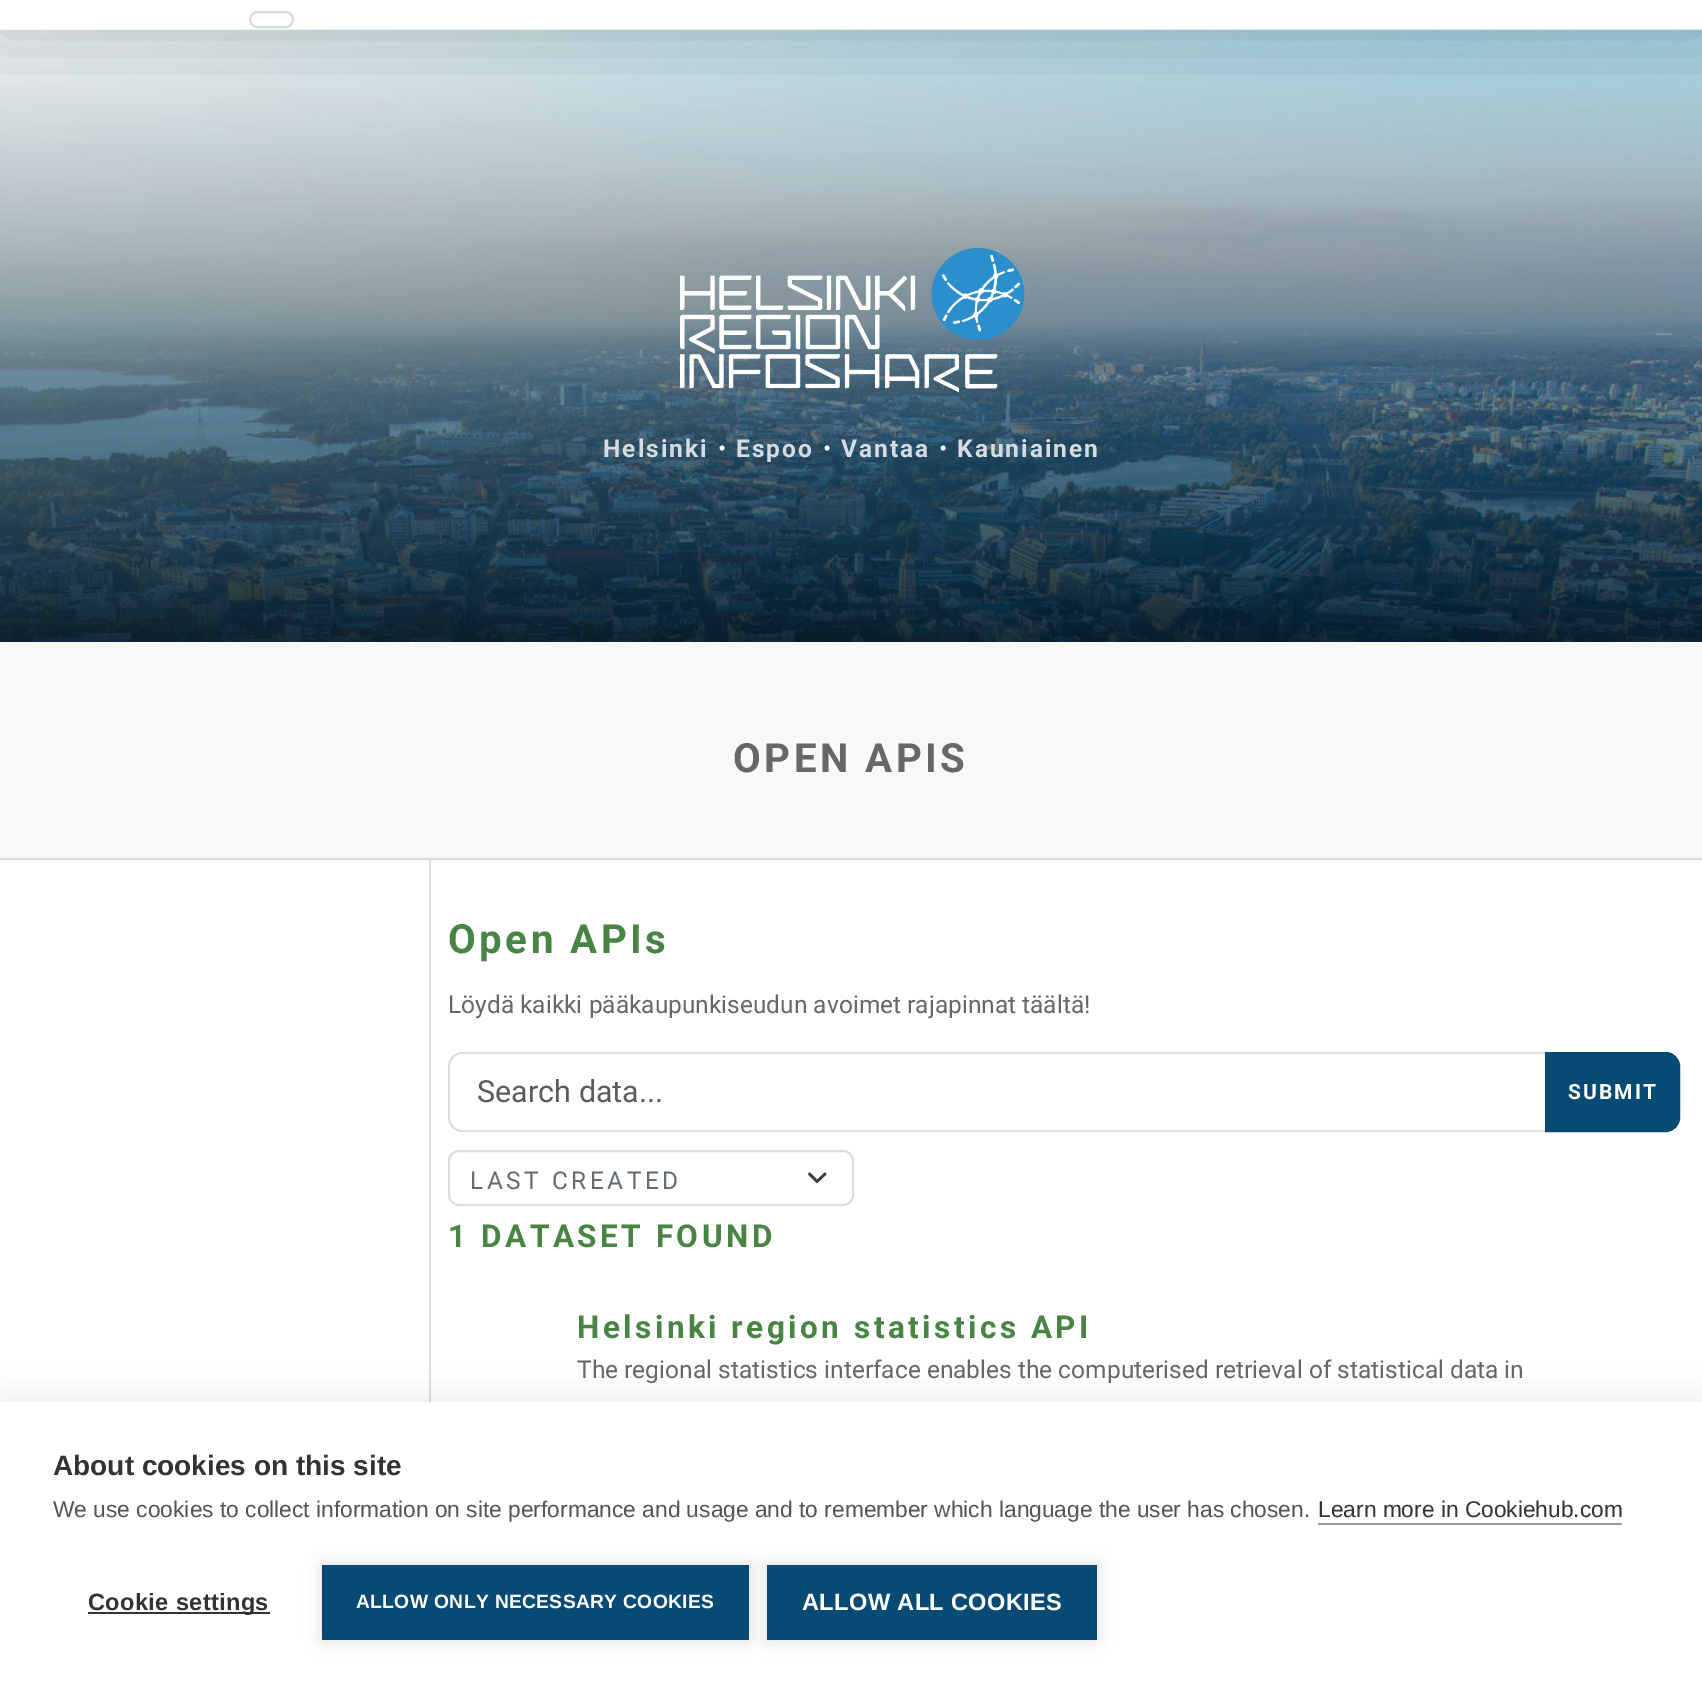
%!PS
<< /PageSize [1702 1683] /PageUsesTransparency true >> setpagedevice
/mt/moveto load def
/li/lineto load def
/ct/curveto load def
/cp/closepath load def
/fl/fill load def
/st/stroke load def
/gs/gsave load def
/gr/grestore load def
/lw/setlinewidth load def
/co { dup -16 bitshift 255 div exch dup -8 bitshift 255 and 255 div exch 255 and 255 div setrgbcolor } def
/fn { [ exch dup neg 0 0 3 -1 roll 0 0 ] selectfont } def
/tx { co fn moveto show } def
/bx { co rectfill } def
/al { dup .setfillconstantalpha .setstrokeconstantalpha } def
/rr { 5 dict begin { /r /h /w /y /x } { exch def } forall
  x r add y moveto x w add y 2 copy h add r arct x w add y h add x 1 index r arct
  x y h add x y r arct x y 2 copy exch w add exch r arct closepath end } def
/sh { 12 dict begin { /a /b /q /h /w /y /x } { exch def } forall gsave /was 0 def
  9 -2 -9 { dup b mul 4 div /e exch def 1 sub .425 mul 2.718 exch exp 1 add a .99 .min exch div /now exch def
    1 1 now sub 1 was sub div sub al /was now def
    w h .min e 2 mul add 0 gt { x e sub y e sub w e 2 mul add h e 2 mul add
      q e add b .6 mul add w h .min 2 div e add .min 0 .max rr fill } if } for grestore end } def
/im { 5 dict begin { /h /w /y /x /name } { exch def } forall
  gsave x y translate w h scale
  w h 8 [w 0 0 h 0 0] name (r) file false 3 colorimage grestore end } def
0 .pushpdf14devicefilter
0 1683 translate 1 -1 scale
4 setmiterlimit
0 0 1702 1683 16#FFFFFF bx
(media/2.raw) 0 29 1702 613 im
gs
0 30 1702 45 rectclip
16#000000 co
0 -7 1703 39 0 35 .2 sh
gr
16#D9D9D9 co
2 lw
250 12 43 15 7.5 rr st
(media/1.raw) 680 247 345 146 im
0 642 1702 216 16#F8F8F8 bx
0 858 1702 2 16#DDDDDD bx
429 859 2 543 16#DDDDDD bx
462 1053 mt 1546 1053 li 1546 1131 li 462 1131 li 455 1131 449 1125 449 1118 ct 449 1066 li 449 1059 455 1053 462 1053 ct cp st
16#074A74 co
1546 1053 mt 1666 1053 li 1673 1053 1679 1059 1679 1066 ct 1679 1118 li 1679 1125 1673 1131 1666 1131 ct 1546 1131 li cp gs fl gr
st
16#343A40 co
2.6 lw
1 setlinecap
1 setlinejoin
809.5 1174 mt 817 1181.5 li 825 1174 li st
16#DDDDDD co
2 lw
0 setlinecap
0 setlinejoin
449 1151 404 54 10 rr st
16#000000 co
0 1402 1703 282 0 17.5 .1 sh
0 1402 1702 281 16#FFFFFF bx
1318 1523 304 2 16#999999 bx
88 1612 182 2 16#333333 bx
16#000000 co
322 1565 427 75 0 9 .12 sh
322 1565 427 75 16#074A74 bx
16#000000 co
767 1565 330 75 0 9 .12 sh
767 1565 330 75 16#074A74 bx
/Roboto-Bold 24.5 fn
16#D6DCE1 co
603 457 mt 2 0 (Helsinki) ashow
(•) 718 457 /Roboto-Regular 24.5 16#FFFFFF tx
/Roboto-Bold 24.5 fn
16#D6DCE1 co
736 457 mt 2 0 (Espoo) ashow
(•) 823 457 /Roboto-Regular 24.5 16#FFFFFF tx
/Roboto-Bold 24.5 fn
16#D6DCE1 co
841 457 mt 2 0 (Vantaa) ashow
(•) 939 457 /Roboto-Regular 24.5 16#FFFFFF tx
/Roboto-Bold 24.5 fn
16#D6DCE1 co
957 457 mt 2 0 (Kauniainen) ashow
/Roboto-Bold 40.25 fn
16#676767 co
733 772 mt 3.5 0 (OPEN APIS) ashow
16#488444 co
448 953 mt 3.5 0 (Open APIs) ashow
(Löydä kaikki pääkaupunkiseudun avoimet rajapinnat täältä!) 448 1013 /Roboto-Regular 24.5 16#676767 tx
(Search data...) 477 1102 /Roboto-Regular 30.5 16#595C5F tx
/Roboto-Bold 21 fn
16#FFFFFF co
1568 1099 mt 2 0 (SUBMIT) ashow
/Roboto-Regular 24.5 fn
16#656D74 co
470 1189 mt 3.5 0 (LAST CREATED) ashow
/Roboto-Bold 31.5 fn
16#488444 co
448 1247 mt 3.5 0 (1 DATASET FOUND) ashow
577 1338 mt 3.5 0 (Helsinki region statistics API) ashow
(The regional statistics interface enables the computerised retrieval of statistical data in) 577 1378 /Roboto-Regular 24.5 16#676767 tx
(About cookies on this site) 53 1475 /LiberationSans-Bold 28 16#333333 tx
(We use cookies to collect information on site performance and usage and to remember which language the user has chosen.) 53 1517 /LiberationSans-Regular 22.75 16#555555 tx
(Learn more in Cookiehub.com) 1318 1517 /LiberationSans-Regular 22.75 16#333333 tx
/LiberationSans-Bold 23.6 fn
88 1610 mt .35 0 (Cookie settings) ashow
/LiberationSans-Bold 19.25 fn
16#FFFFFF co
356 1608 mt .35 0 (ALLOW ONLY NECESSARY COOKIES) ashow
/LiberationSans-Bold 23.6 fn
802 1610 mt .35 0 (ALLOW ALL COOKIES) ashow
.poppdf14devicefilter showpage
